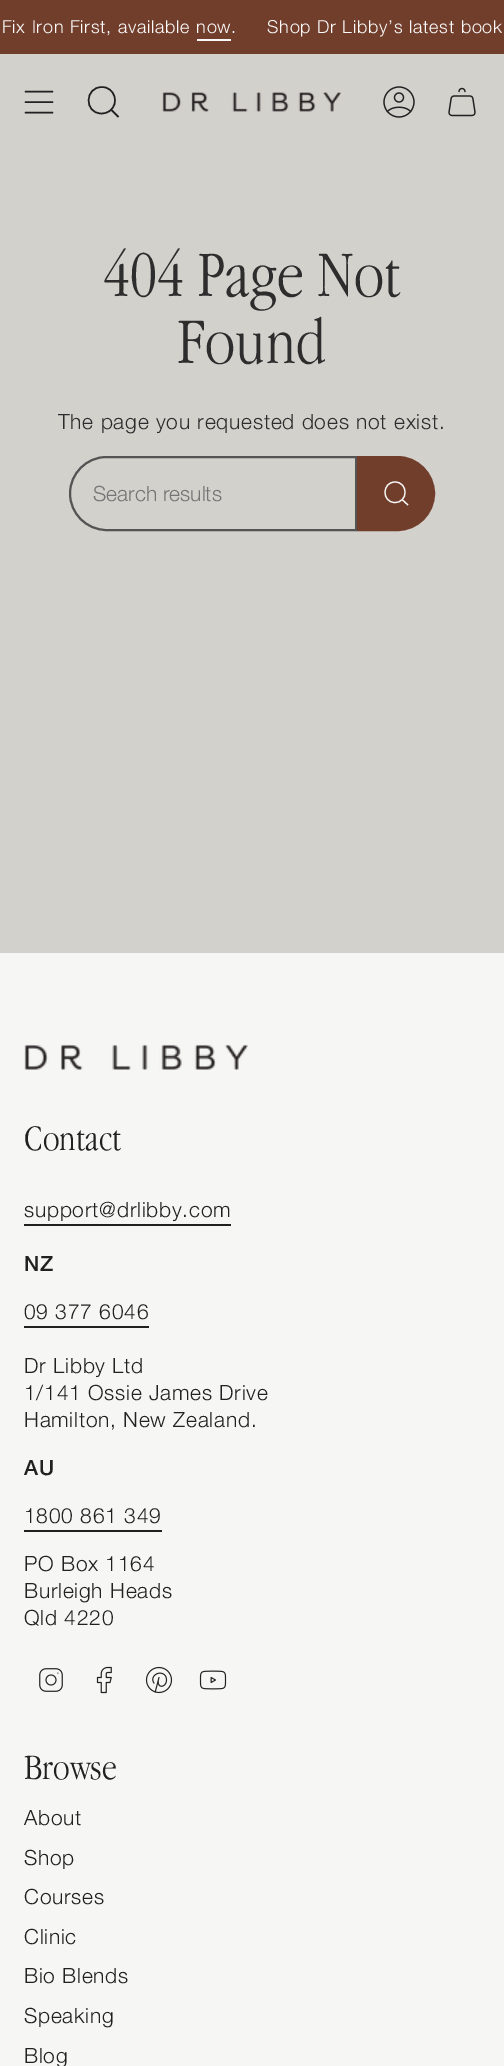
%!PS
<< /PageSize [504 2066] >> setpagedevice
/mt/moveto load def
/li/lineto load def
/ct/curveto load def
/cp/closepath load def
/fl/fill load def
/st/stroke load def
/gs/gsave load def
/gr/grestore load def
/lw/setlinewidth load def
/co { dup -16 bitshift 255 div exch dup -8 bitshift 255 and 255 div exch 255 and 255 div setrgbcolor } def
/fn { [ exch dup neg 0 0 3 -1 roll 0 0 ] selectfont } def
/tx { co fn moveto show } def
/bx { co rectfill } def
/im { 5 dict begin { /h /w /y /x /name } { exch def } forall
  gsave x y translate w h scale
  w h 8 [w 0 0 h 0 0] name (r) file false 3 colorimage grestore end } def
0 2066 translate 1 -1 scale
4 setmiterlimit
0 0 504 2066 16#D3D1CC bx
0 0 504 54 16#723E2C bx
197 39 34 2 16#FAFAFA bx
16#212121 co
1.5 lw
1 setlinecap
1 setlinejoin
25.5 91.5 mt 52.5 91.5 li 25.5 102 mt 52.5 102 li 25.5 112.5 mt 52.5 112.5 li st
0 setlinecap
0 setlinejoin
102 87 mt 114.5 87 120 103.5 109.5 111 ct 107 113 104 113.5 101 113.5 ct 84 113 84.5 87 102 87 ct cp 111 109.5 mt 118.5 117 li st
(media/1.raw) 162 92 179 20 im
(media/2.raw) 383 86 32 32 im
(media/3.raw) 448 87 28 30 im
16#545454 co
2 lw
106.5 457 mt 356 457 li 356 530 li 106.5 530 li 86.5 530 70 513.5 70 493.5 ct 70 473.5 86.5 457 106.5 457 ct cp st
16#723E2C co
358 457 mt 397.5 457 li 417.5 457 434 473.5 434 493.5 ct 434 513.5 417.5 530 397.5 530 ct 358 530 li cp gs fl gr
st
16#F6F6F5 co
1.2 lw
395 482 mt 408.5 482 408.5 503 394.5 502.5 ct 381.5 502 382 482 395 482 ct cp 402 499.5 mt 408 505 li st
0 953 504 1113 16#F6F6F5 bx
(media/4.raw) 24 1044 224 26 im
24 1224 207 2 16#212121 bx
24 1326 125 2 16#212121 bx
24 1530 138 2 16#212121 bx
(media/5.raw) 39 1668 24 24 im
(media/6.raw) 96 1666 16 28 im
(media/7.raw) 145 1666 28 28 im
(media/8.raw) 199 1670 28 20 im
/HelveticaNeue-Light 18 fn
16#FAFAFA co
2 33 mt .75 0 (Fix Iron First, available now) ashow
231 33 mt .75 0 (.) ashow
267 33 mt .75 0 (Shop Dr Libby’s latest book) ashow
(404 Page Not) 103 296 /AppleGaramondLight-Light 67 16#2D2D2D tx
(Found) 177 363 /AppleGaramondLight-Light 67 16#2D2D2D tx
/HelveticaNeue-Light 21 fn
58 429 mt .75 0 (The page you requested does not exist.) ashow
(Search results) 93 501 /HelveticaNeue-Light 21 16#757575 tx
(Contact) 24 1150 /AppleGaramondLight-Light 37 16#212121 tx
/HelveticaNeue-Light 21 fn
24 1217 mt .75 0 (support@drlibby.com) ashow
/HelveticaNeue-Medium 21 fn
24 1271 mt .75 0 (NZ) ashow
/HelveticaNeue-Light 21 fn
24 1319 mt .75 0 (09 377 6046) ashow
24 1373 mt .75 0 (Dr Libby Ltd) ashow
24 1400 mt .75 0 (1/141 Ossie James Drive) ashow
24 1427 mt .75 0 (Hamilton, New Zealand.) ashow
/HelveticaNeue-Medium 21 fn
24 1475 mt .75 0 (AU) ashow
/HelveticaNeue-Light 21 fn
24 1523 mt .75 0 (1800 861 349) ashow
24 1571 mt .75 0 (PO Box 1164) ashow
24 1598 mt .75 0 (Burleigh Heads) ashow
24 1625 mt .75 0 (Qld 4220) ashow
(Browse) 24 1779 /AppleGaramondLight-Light 37 16#212121 tx
/HelveticaNeue-Light 21 fn
24 1825 mt .75 0 (About) ashow
24 1865 mt .75 0 (Shop) ashow
24 1904 mt .75 0 (Courses) ashow
24 1944 mt .75 0 (Clinic) ashow
24 1983 mt .75 0 (Bio Blends) ashow
24 2023 mt .75 0 (Speaking) ashow
24 2063 mt .75 0 (Blog) ashow
showpage
